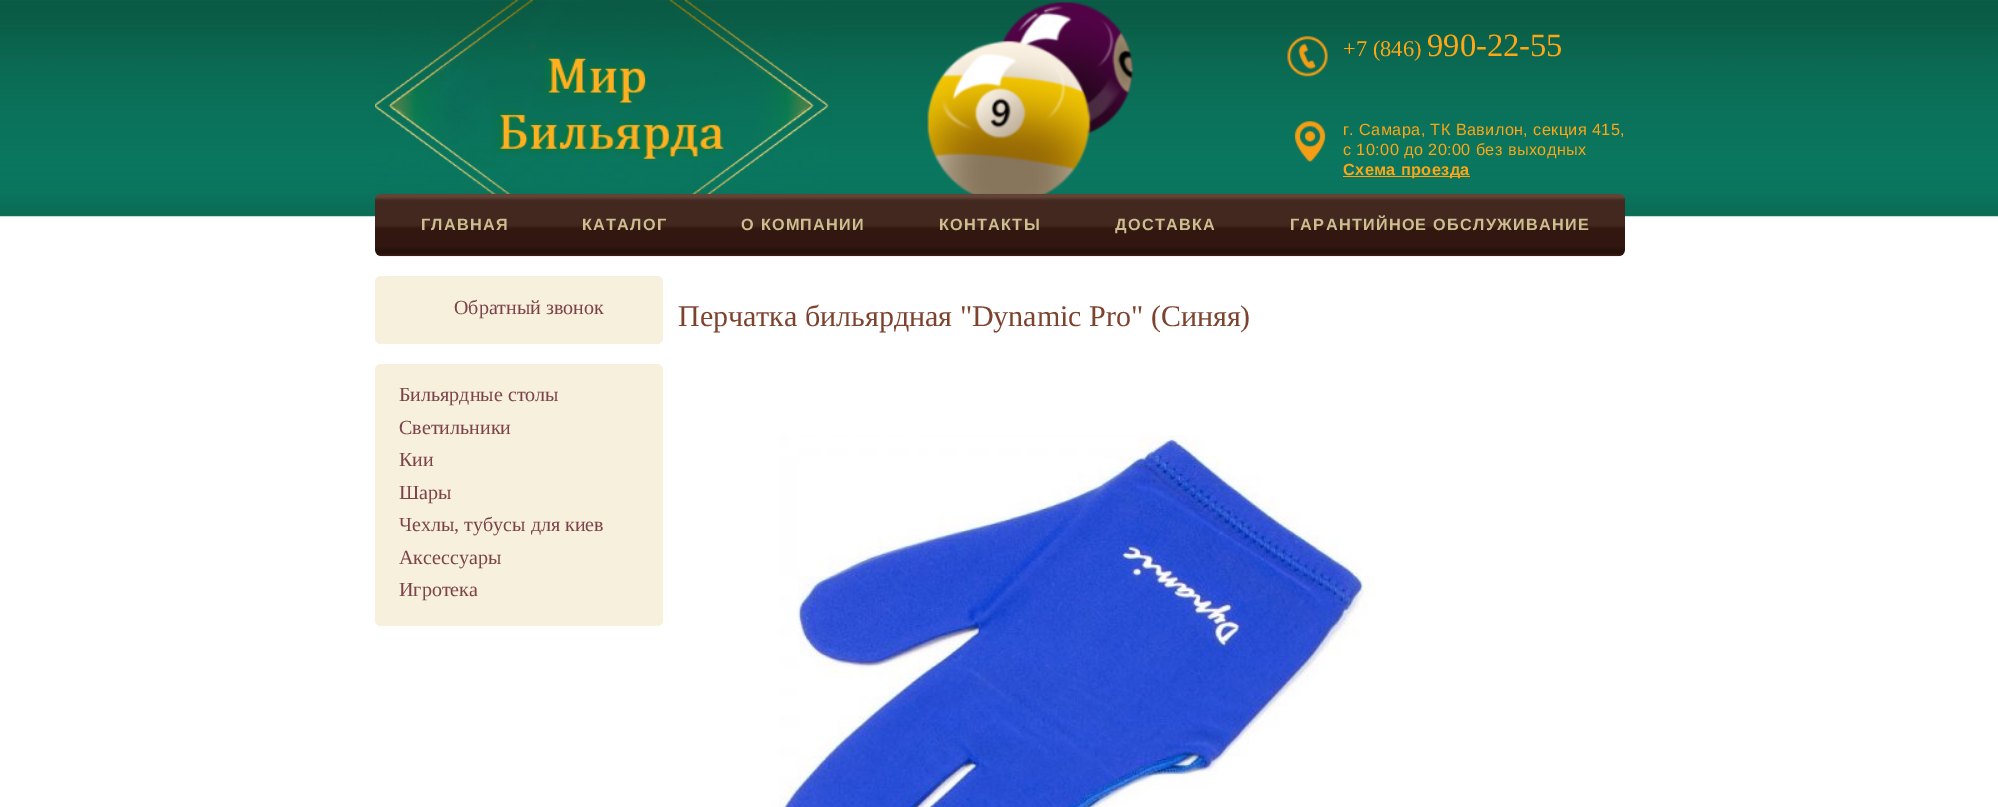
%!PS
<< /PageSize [1998 807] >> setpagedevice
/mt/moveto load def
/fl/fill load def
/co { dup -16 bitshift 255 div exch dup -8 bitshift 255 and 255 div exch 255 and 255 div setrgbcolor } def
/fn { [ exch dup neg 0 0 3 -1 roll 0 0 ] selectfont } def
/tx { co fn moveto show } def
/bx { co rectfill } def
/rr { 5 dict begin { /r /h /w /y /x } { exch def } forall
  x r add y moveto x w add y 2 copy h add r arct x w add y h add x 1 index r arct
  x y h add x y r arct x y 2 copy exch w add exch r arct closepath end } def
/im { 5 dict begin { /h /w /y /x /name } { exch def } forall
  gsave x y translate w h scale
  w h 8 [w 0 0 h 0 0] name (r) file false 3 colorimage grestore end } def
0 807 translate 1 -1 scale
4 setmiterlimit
0 0 1998 807 16#FFFFFF bx
(media/1.raw) 0 0 1998 217 im
(media/2.raw) 927 2 207 192 im
(media/3.raw) 375 0 457 200 im
(media/4.raw) 1287 36 41 41 im
(media/5.raw) 1294 121 32 41 im
1343 176 127 1 16#FFA616 bx
(media/6.raw) 375 193 1250 64 im
16#F7F0DD co
375 276 288 68 6 rr fl
375 364 288 262 6 rr fl
(media/7.raw) 779 435 597 372 im
(+7 \(846\)) 1343 56 /LiberationSerif-Regular 22.5 16#FFA616 tx
(990-22-55) 1427 56 /LiberationSerif-Regular 32.5 16#FFA616 tx
/LiberationSans-Regular 16.25 fn
1343 135 mt .4 0 (г. Самара, ТК Вавилон, секция 415,) ashow
1343 155 mt .4 0 (c 10:00 до 20:00 без выходных) ashow
/LiberationSans-Bold 16.25 fn
1343 175 mt .4 0 (Схема проезда) ashow
16#CEBD8E co
421 230 mt 1.25 0 (ГЛАВНАЯ) ashow
582 230 mt 1.25 0 (КАТАЛОГ) ashow
741 230 mt 1.25 0 (О КОМПАНИИ) ashow
939 230 mt 1.25 0 (КОНТАКТЫ) ashow
1115 230 mt 1.25 0 (ДОСТАВКА) ashow
1290 230 mt 1.25 0 (ГАРАНТИЙНОЕ ОБСЛУЖИВАНИЕ) ashow
(Обратный звонок) 454 314 /LiberationSerif-Regular 20 16#7D434A tx
(Бильярдные столы) 399 401 /LiberationSerif-Regular 20 16#7D434A tx
(Светильники) 399 434 /LiberationSerif-Regular 20 16#7D434A tx
(Кии) 399 466 /LiberationSerif-Regular 20 16#7D434A tx
(Шары) 399 499 /LiberationSerif-Regular 20 16#7D434A tx
(Чехлы, тубусы для киев) 399 531 /LiberationSerif-Regular 20 16#7D434A tx
(Аксессуары) 399 564 /LiberationSerif-Regular 20 16#7D434A tx
(Игротека) 399 596 /LiberationSerif-Regular 20 16#7D434A tx
(Перчатка бильярдная "Dynamic Pro" \(Синяя\)) 678 326 /LiberationSerif-Regular 30 16#7D432E tx
showpage
